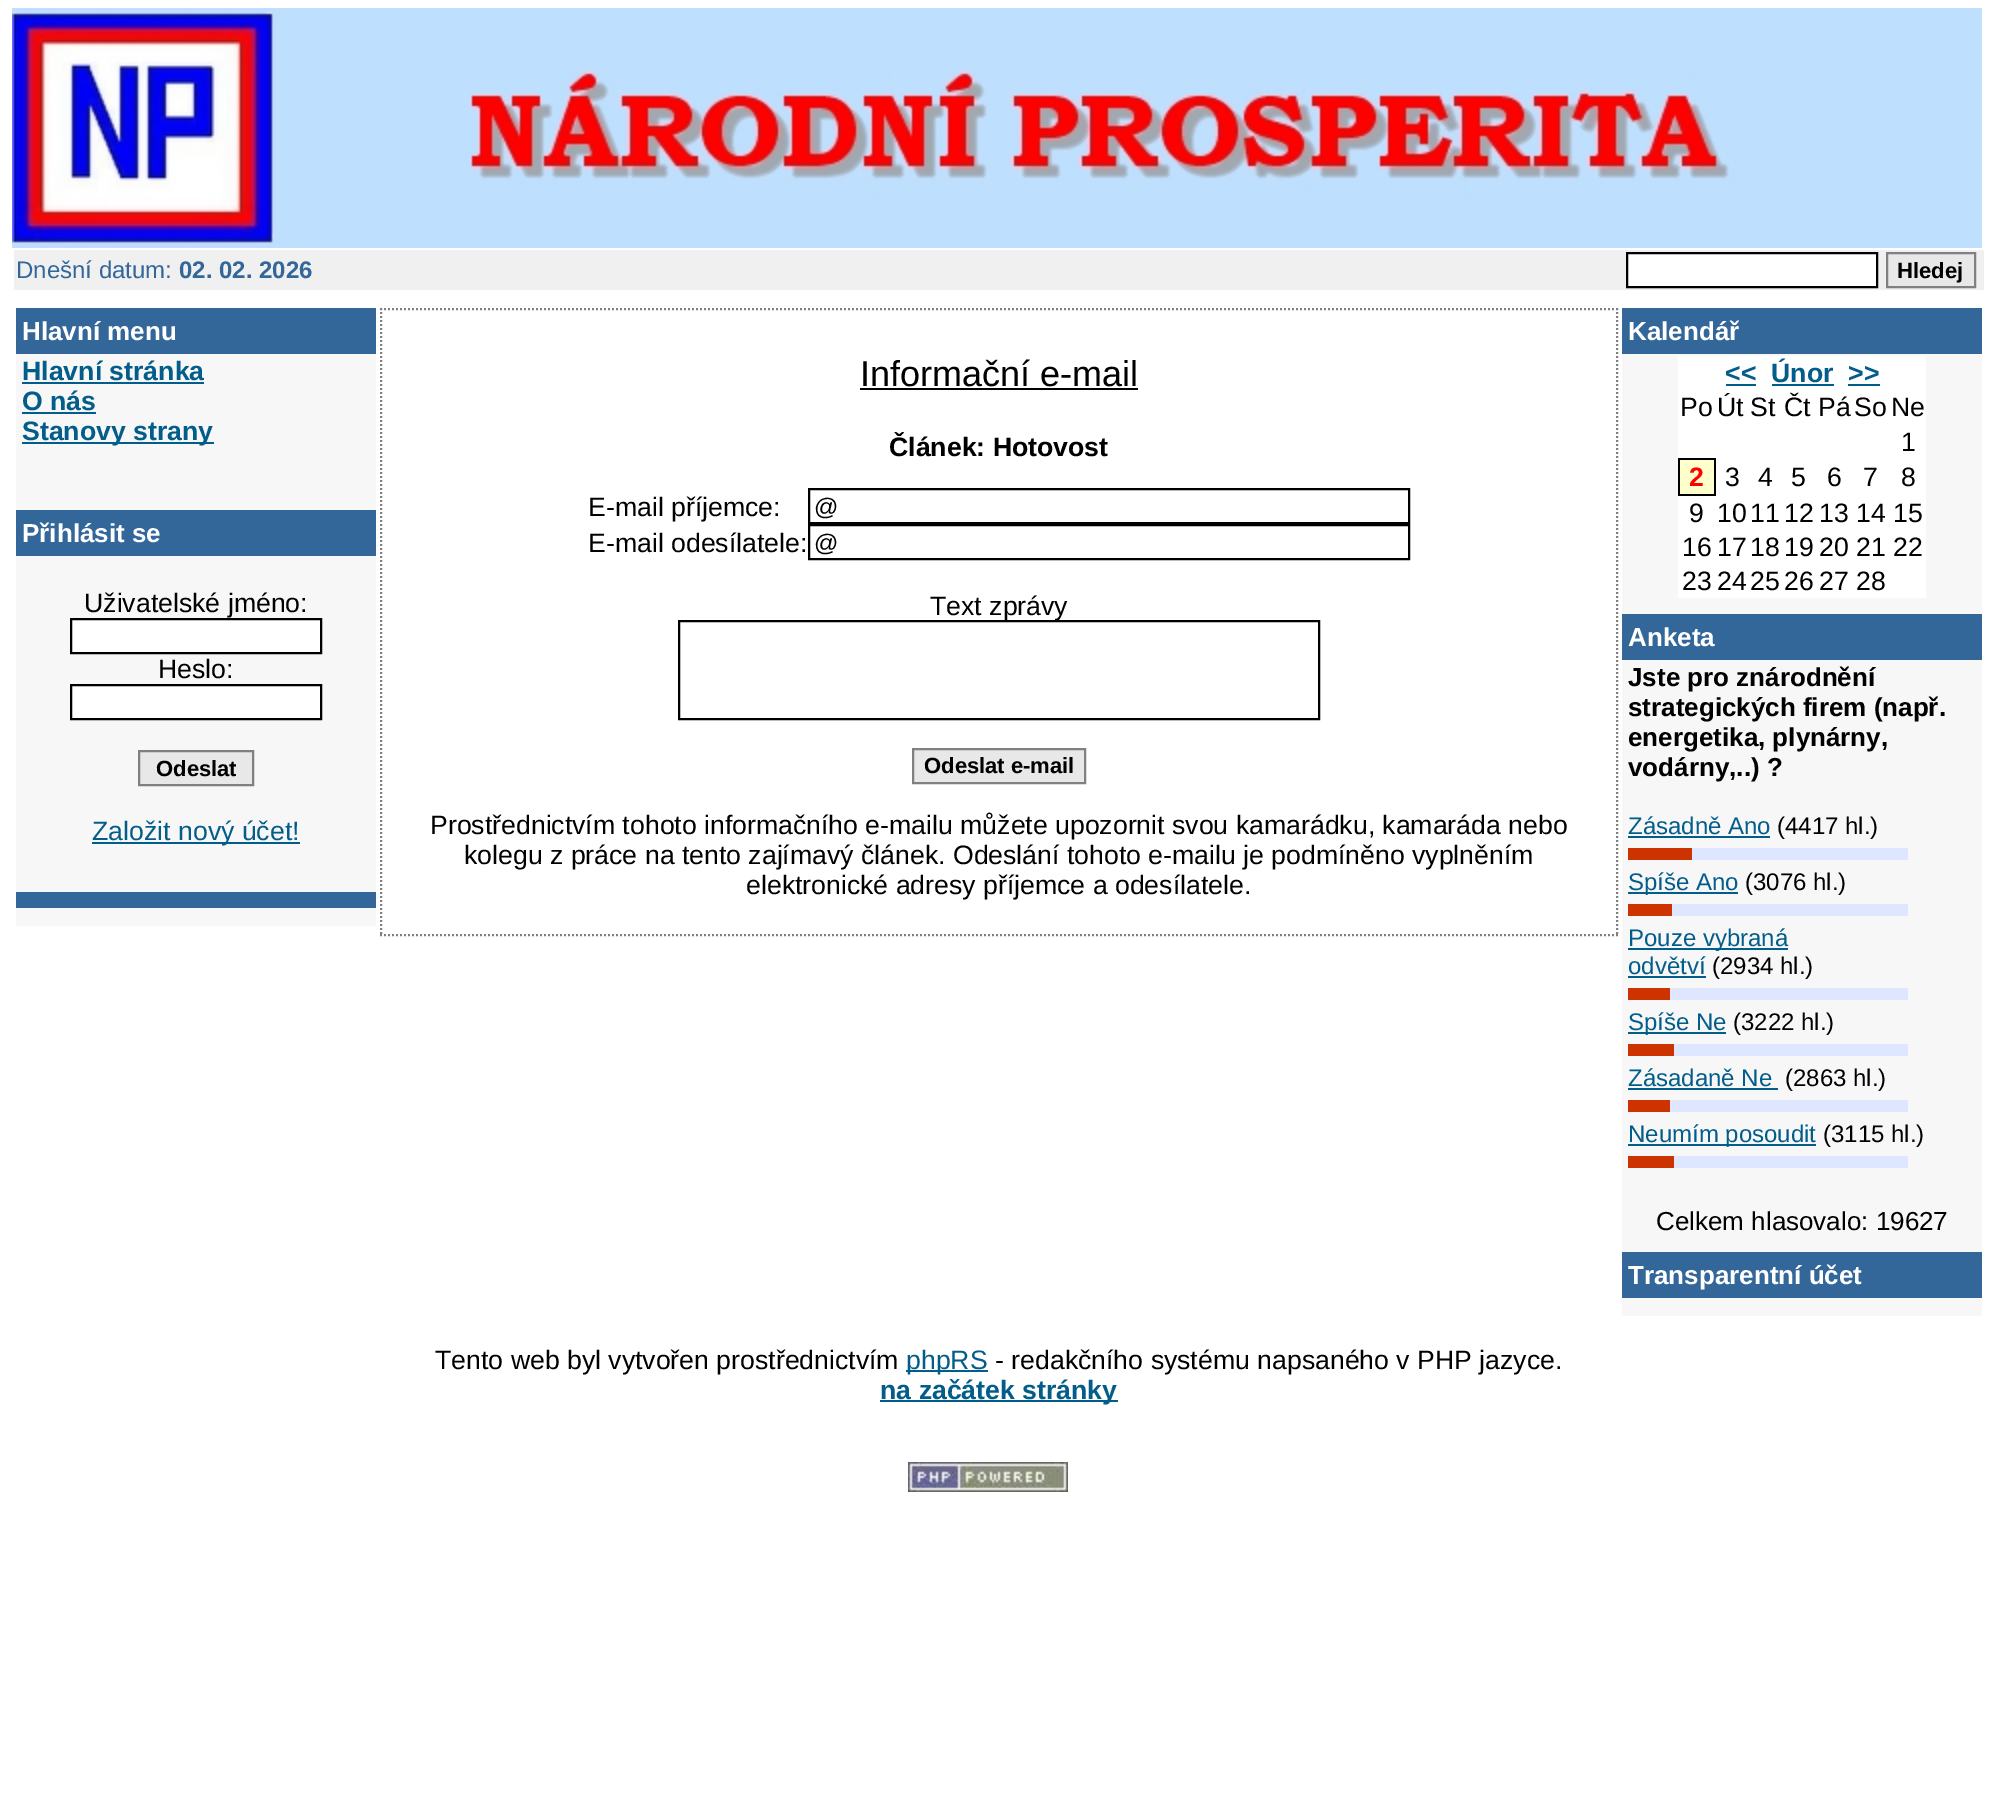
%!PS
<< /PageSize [1997 1813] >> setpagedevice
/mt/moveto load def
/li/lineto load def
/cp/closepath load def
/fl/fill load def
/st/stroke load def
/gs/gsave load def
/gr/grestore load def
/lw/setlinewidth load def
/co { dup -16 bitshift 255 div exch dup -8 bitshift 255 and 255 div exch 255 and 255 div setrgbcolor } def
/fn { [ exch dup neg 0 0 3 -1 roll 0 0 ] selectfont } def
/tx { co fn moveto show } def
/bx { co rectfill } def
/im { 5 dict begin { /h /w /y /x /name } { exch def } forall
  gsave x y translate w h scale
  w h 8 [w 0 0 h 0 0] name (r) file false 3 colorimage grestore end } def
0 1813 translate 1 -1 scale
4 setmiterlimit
0 0 1997 1813 16#FFFFFF bx
(media/1.raw) 12 8 1970 240 im
14 250 1970 40 16#F0F0F0 bx
16#FFFFFF co
1627 253 mt 1877 253 li 1877 287 li 1627 287 li cp gs fl gr
16#000000 co
2 lw
st
16#E8E8E8 co
1887 253 mt 1975 253 li 1975 287 li 1887 287 li cp gs fl gr
16#808080 co
st
16 354 360 156 16#F7F7F7 bx
16 308 360 46 16#336699 bx
22 382 182 2 16#035D8A bx
22 412 74 2 16#035D8A bx
22 442 192 2 16#035D8A bx
16 556 360 336 16#F7F7F7 bx
16 510 360 46 16#336699 bx
16#FFFFFF co
71 619 mt 321 619 li 321 653 li 71 653 li cp gs fl gr
16#000000 co
st
16#FFFFFF co
71 685 mt 321 685 li 321 719 li 71 719 li cp gs fl gr
16#000000 co
st
16#E8E8E8 co
139 751 mt 253 751 li 253 785 li 139 785 li cp gs fl gr
16#808080 co
st
92 842 208 2 16#035D8A bx
16 908 360 18 16#F7F7F7 bx
16 892 360 16 16#336699 bx
16#808080 co
[2 2] 0 setdash
380 309 mt 1618 309 li st
1617 308 mt 1617 936 li st
380 935 mt 1618 935 li st
381 308 mt 381 936 li st
860 388 278 2 16#000000 bx
[] 0 setdash
809 489 600 34 rectstroke
809 525 600 34 rectstroke
679 621 640 98 rectstroke
16#E8E8E8 co
913 749 mt 1085 749 li 1085 783 li 913 783 li cp gs fl gr
16#808080 co
st
1622 354 360 260 16#F7F7F7 bx
1622 308 360 46 16#336699 bx
1678 356 248 104 16#FFFFFF bx
1726 384 30 2 16#035D8A bx
1772 384 62 2 16#035D8A bx
1848 384 32 2 16#035D8A bx
1716 460 210 36 16#FFFFFF bx
1680 460 34 34 16#FFFFCC bx
1678 458 38 2 16#000000 bx
1714 458 2 38 16#000000 bx
1678 494 38 2 16#000000 bx
1678 458 2 38 16#000000 bx
1678 496 248 102 16#FFFFFF bx
1622 660 360 592 16#F7F7F7 bx
1622 614 360 46 16#336699 bx
1628 836 142 2 16#035D8A bx
1692 848 216 12 16#DEE7FF bx
1628 848 64 12 16#CC3300 bx
1628 892 110 2 16#035D8A bx
1672 904 236 12 16#DEE7FF bx
1628 904 44 12 16#CC3300 bx
1628 948 160 2 16#035D8A bx
1628 976 78 2 16#035D8A bx
1670 988 238 12 16#DEE7FF bx
1628 988 42 12 16#CC3300 bx
1628 1032 98 2 16#035D8A bx
1674 1044 234 12 16#DEE7FF bx
1628 1044 46 12 16#CC3300 bx
1628 1088 150 2 16#035D8A bx
1670 1100 238 12 16#DEE7FF bx
1628 1100 42 12 16#CC3300 bx
1628 1144 188 2 16#035D8A bx
1674 1156 234 12 16#DEE7FF bx
1628 1156 46 12 16#CC3300 bx
1622 1298 360 18 16#F7F7F7 bx
1622 1252 360 46 16#336699 bx
906 1370 82 2 16#035D8A bx
880 1400 238 2 16#035D8A bx
(media/2.raw) 908 1462 160 30 im
(Dnešní datum:) 16 278 /LiberationSans-Regular 24 16#336699 tx
(02. 02. 2026) 179 278 /LiberationSans-Bold 24 16#336699 tx
(Hledej) 1897 278 /LiberationSans-Bold 22 16#000000 tx
(Hlavní menu) 22 340 /LiberationSans-Bold 26 16#FFFFFF tx
(Hlavní stránka) 22 380 /LiberationSans-Bold 26.65 16#035D8A tx
(O nás) 22 410 /LiberationSans-Bold 26.65 16#035D8A tx
(Stanovy strany) 22 440 /LiberationSans-Bold 26.65 16#035D8A tx
(Přihlásit se) 22 542 /LiberationSans-Bold 26 16#FFFFFF tx
(Uživatelské jméno:) 84 612 /LiberationSans-Regular 26.65 16#000000 tx
(Heslo:) 158 678 /LiberationSans-Regular 26.65 16#000000 tx
(Odeslat) 156 776 /LiberationSans-Bold 22 16#000000 tx
(Založit nový účet!) 92 840 /LiberationSans-Regular 26.65 16#035D8A tx
(Informační e-mail) 860 386 /LiberationSans-Regular 36 16#000000 tx
(Článek: Hotovost) 889 456 /LiberationSans-Bold 26.65 16#000000 tx
(E-mail příjemce:) 588 516 /LiberationSans-Regular 26.65 16#000000 tx
(@) 814 515 /LiberationSans-Regular 24 16#000000 tx
(E-mail odesílatele:) 588 552 /LiberationSans-Regular 26.65 16#000000 tx
(@) 814 551 /LiberationSans-Regular 24 16#000000 tx
(Text zprávy) 930 615 /LiberationSans-Regular 26.65 16#000000 tx
(Odeslat e-mail) 924 773 /LiberationSans-Bold 22 16#000000 tx
(Prostřednictvím tohoto informačního e-mailu můžete upozornit svou kamarádku, kamaráda nebo) 430 834 /LiberationSans-Regular 26.65 16#000000 tx
(kolegu z práce na tento zajímavý článek. Odeslání tohoto e-mailu je podmíněno vyplněním) 464 864 /LiberationSans-Regular 26.65 16#000000 tx
(elektronické adresy příjemce a odesílatele.) 746 894 /LiberationSans-Regular 26.65 16#000000 tx
(Kalendář) 1628 340 /LiberationSans-Bold 26 16#FFFFFF tx
(<<) 1725 382 /LiberationSans-Bold 26.65 16#035D8A tx
(Únor) 1771 382 /LiberationSans-Bold 26.65 16#035D8A tx
(>>) 1848 382 /LiberationSans-Bold 26.65 16#035D8A tx
(Po) 1680 416 /LiberationSans-Regular 26.65 16#000000 tx
(Út) 1717 416 /LiberationSans-Regular 26.65 16#000000 tx
(St) 1750 416 /LiberationSans-Regular 26.65 16#000000 tx
(Čt) 1784 416 /LiberationSans-Regular 26.65 16#000000 tx
(Pá) 1818 416 /LiberationSans-Regular 26.65 16#000000 tx
(So) 1854 416 /LiberationSans-Regular 26.65 16#000000 tx
(Ne) 1891 416 /LiberationSans-Regular 26.65 16#000000 tx
(1) 1901 451 /LiberationSans-Regular 26.65 16#000000 tx
(2) 1689 486 /LiberationSans-Bold 26.65 16#FF0000 tx
(3) 1725 486 /LiberationSans-Regular 26.65 16#000000 tx
(4) 1758 486 /LiberationSans-Regular 26.65 16#000000 tx
(5) 1791 486 /LiberationSans-Regular 26.65 16#000000 tx
(6) 1827 486 /LiberationSans-Regular 26.65 16#000000 tx
(7) 1863 486 /LiberationSans-Regular 26.65 16#000000 tx
(8) 1901 486 /LiberationSans-Regular 26.65 16#000000 tx
(9) 1689 522 /LiberationSans-Regular 26.65 16#000000 tx
(10) 1717 522 /LiberationSans-Regular 26.65 16#000000 tx
(11) 1750 522 /LiberationSans-Regular 26.65 16#000000 tx
(12) 1784 522 /LiberationSans-Regular 26.65 16#000000 tx
(13) 1819 522 /LiberationSans-Regular 26.65 16#000000 tx
(14) 1856 522 /LiberationSans-Regular 26.65 16#000000 tx
(15) 1893 522 /LiberationSans-Regular 26.65 16#000000 tx
(16) 1682 556 /LiberationSans-Regular 26.65 16#000000 tx
(17) 1717 556 /LiberationSans-Regular 26.65 16#000000 tx
(18) 1750 556 /LiberationSans-Regular 26.65 16#000000 tx
(19) 1784 556 /LiberationSans-Regular 26.65 16#000000 tx
(20) 1819 556 /LiberationSans-Regular 26.65 16#000000 tx
(21) 1856 556 /LiberationSans-Regular 26.65 16#000000 tx
(22) 1893 556 /LiberationSans-Regular 26.65 16#000000 tx
(23) 1682 590 /LiberationSans-Regular 26.65 16#000000 tx
(24) 1717 590 /LiberationSans-Regular 26.65 16#000000 tx
(25) 1750 590 /LiberationSans-Regular 26.65 16#000000 tx
(26) 1784 590 /LiberationSans-Regular 26.65 16#000000 tx
(27) 1819 590 /LiberationSans-Regular 26.65 16#000000 tx
(28) 1856 590 /LiberationSans-Regular 26.65 16#000000 tx
(Anketa) 1628 646 /LiberationSans-Bold 26 16#FFFFFF tx
(Jste pro znárodnění) 1628 686 /LiberationSans-Bold 26 16#000000 tx
(strategických firem \(např.) 1628 716 /LiberationSans-Bold 26 16#000000 tx
(energetika, plynárny,) 1628 746 /LiberationSans-Bold 26 16#000000 tx
(vodárny,..\) ?) 1628 776 /LiberationSans-Bold 26 16#000000 tx
(Zásadně Ano) 1628 834 /LiberationSans-Regular 24 16#035D8A tx
(\(4417 hl.\)) 1777 834 /LiberationSans-Regular 24 16#000000 tx
(Spíše Ano) 1628 890 /LiberationSans-Regular 24 16#035D8A tx
(\(3076 hl.\)) 1745 890 /LiberationSans-Regular 24 16#000000 tx
(Pouze vybraná) 1628 946 /LiberationSans-Regular 24 16#035D8A tx
(odvětví) 1628 974 /LiberationSans-Regular 24 16#035D8A tx
(\(2934 hl.\)) 1712 974 /LiberationSans-Regular 24 16#000000 tx
(Spíše Ne) 1628 1030 /LiberationSans-Regular 24 16#035D8A tx
(\(3222 hl.\)) 1733 1030 /LiberationSans-Regular 24 16#000000 tx
(Zásadaně Ne) 1628 1086 /LiberationSans-Regular 24 16#035D8A tx
(\(2863 hl.\)) 1785 1086 /LiberationSans-Regular 24 16#000000 tx
(Neumím posoudit) 1628 1142 /LiberationSans-Regular 24 16#035D8A tx
(\(3115 hl.\)) 1823 1142 /LiberationSans-Regular 24 16#000000 tx
(Celkem hlasovalo: 19627) 1656 1230 /LiberationSans-Regular 26 16#000000 tx
(Transparentní účet) 1628 1284 /LiberationSans-Bold 26 16#FFFFFF tx
(Tento web byl vytvořen prostřednictvím) 435 1369 /LiberationSans-Regular 26.65 16#000000 tx
(phpRS) 906 1369 /LiberationSans-Regular 26.65 16#035D8A tx
(- redakčního systému napsaného v PHP jazyce.) 995 1369 /LiberationSans-Regular 26.65 16#000000 tx
(na začátek stránky) 880 1399 /LiberationSans-Bold 26.65 16#035D8A tx
showpage
